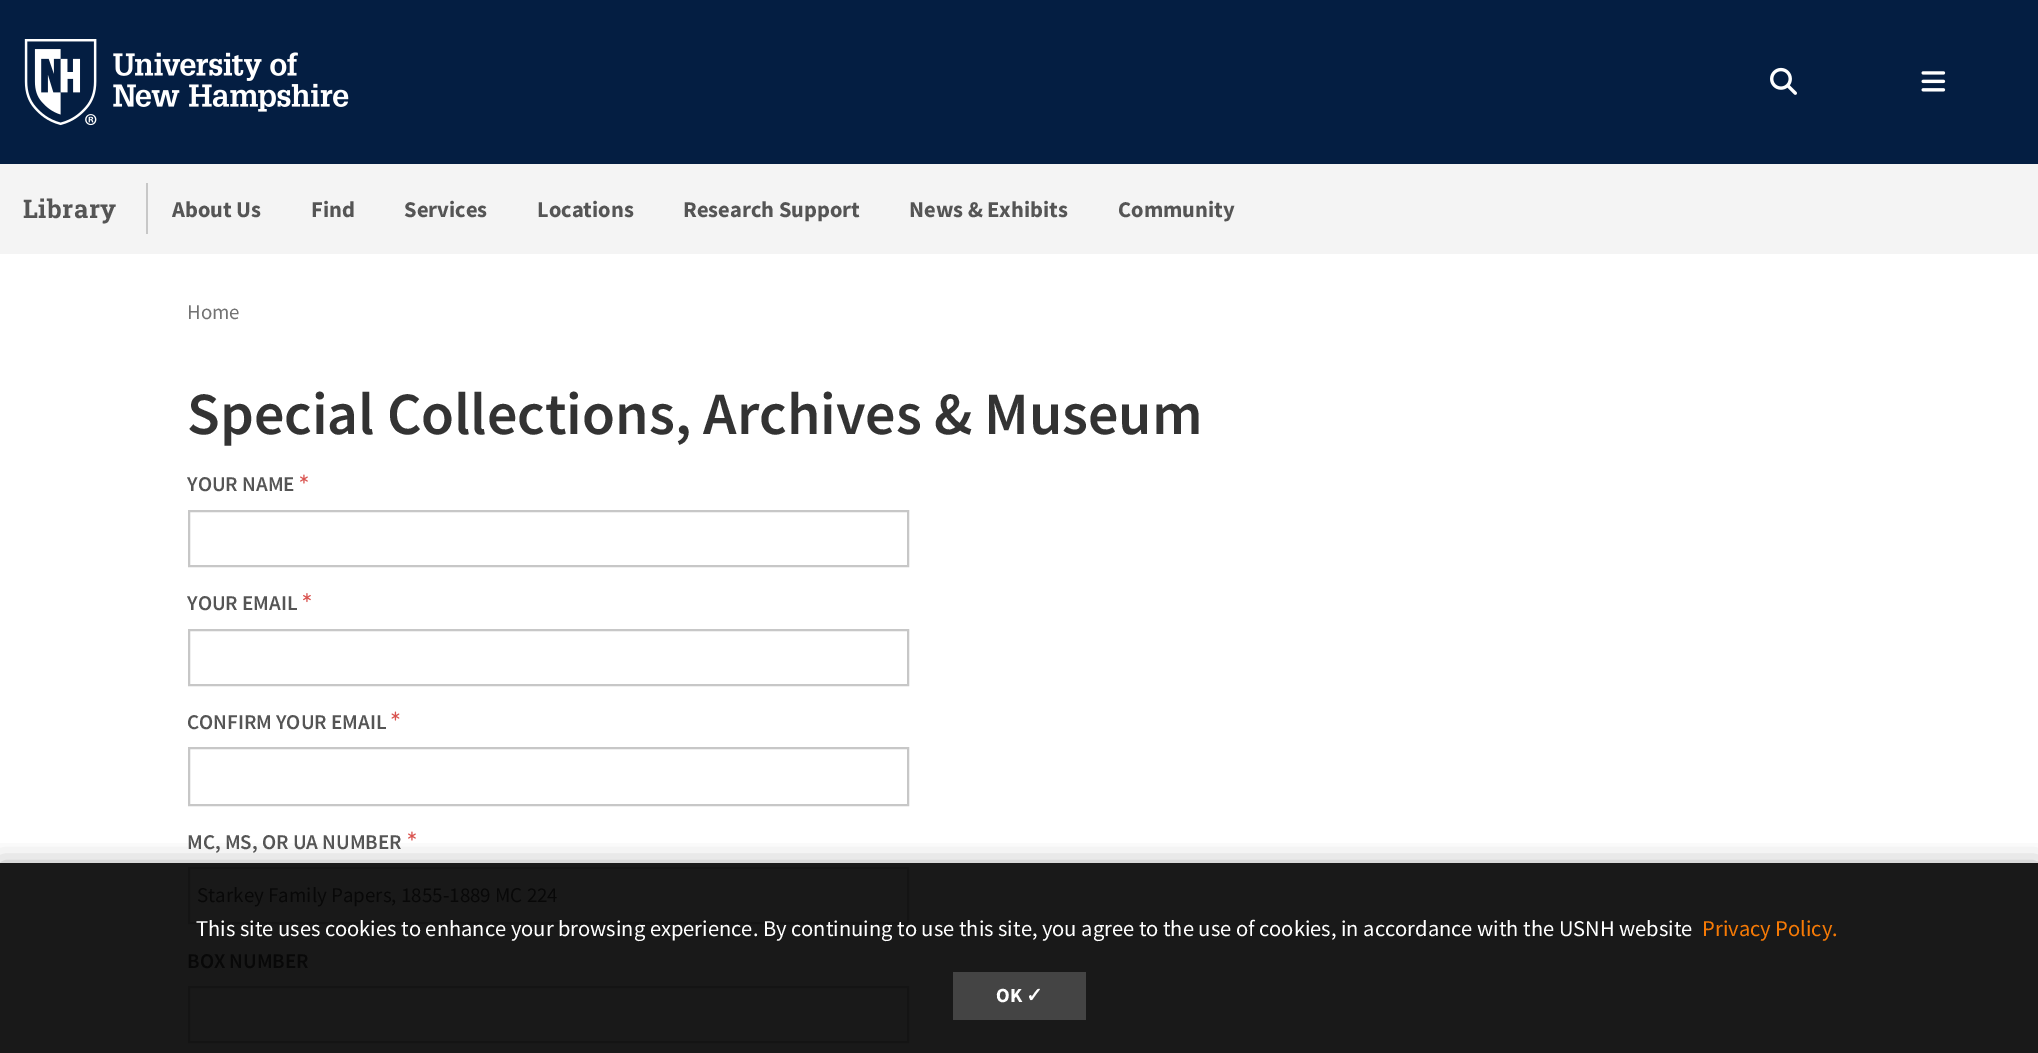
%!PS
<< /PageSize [2038 1053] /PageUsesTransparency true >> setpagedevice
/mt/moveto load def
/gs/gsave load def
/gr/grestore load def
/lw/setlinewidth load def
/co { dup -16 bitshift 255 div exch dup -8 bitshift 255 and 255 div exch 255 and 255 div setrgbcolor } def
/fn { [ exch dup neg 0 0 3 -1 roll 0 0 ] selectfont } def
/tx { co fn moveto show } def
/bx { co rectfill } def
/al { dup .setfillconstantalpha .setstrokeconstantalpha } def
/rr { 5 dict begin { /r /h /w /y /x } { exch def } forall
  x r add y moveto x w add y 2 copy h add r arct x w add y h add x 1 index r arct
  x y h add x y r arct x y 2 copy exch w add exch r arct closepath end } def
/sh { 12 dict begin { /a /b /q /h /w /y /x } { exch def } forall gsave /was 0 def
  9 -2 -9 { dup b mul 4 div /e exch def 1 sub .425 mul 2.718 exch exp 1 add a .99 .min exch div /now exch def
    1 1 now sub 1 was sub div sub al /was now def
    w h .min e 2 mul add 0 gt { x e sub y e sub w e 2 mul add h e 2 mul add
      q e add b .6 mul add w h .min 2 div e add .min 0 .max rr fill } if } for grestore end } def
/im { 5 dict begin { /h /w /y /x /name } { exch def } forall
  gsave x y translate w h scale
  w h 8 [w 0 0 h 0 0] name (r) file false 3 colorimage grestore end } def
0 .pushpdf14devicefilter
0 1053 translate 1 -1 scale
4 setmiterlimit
0 0 2038 1053 16#FFFFFF bx
0 863 2038 190 16#191919 bx
0 0 2038 164 16#041E42 bx
(media/1.raw) 24 39 325 87 im
(media/2.raw) 1770 67 27 28 im
(media/3.raw) 1921 71 25 21 im
0 164 2038 90 16#F4F4F4 bx
146 183 2 51 16#C7C7C7 bx
(media/4.raw) 300 474 8 10 im
2 lw
189 511 719 55 rectstroke
(media/5.raw) 303 593 8 10 im
189 630 719 55 rectstroke
(media/6.raw) 391 711 9 10 im
189 748 719 57 rectstroke
(media/4.raw) 408 831 8 10 im
16#141414 co
189 868 719 55 rectstroke
189 987 719 55 rectstroke
gs
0 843 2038 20 rectclip
16#000000 co
0 863 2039 190 0 13 .3 sh
gr
953 972 133 48 16#444444 bx
/RobotoSlab-Bold 25.5 fn
16#555555 co
23 218 mt .5 0 (Library) ashow
(About Us) 172 217 /SourceSansPro-Bold 22.5 16#555555 tx
(Find) 311 217 /SourceSansPro-Bold 22.5 16#555555 tx
(Services) 404 217 /SourceSansPro-Bold 22.5 16#555555 tx
(Locations) 537 217 /SourceSansPro-Bold 22.5 16#555555 tx
(Research Support) 683 217 /SourceSansPro-Bold 22.5 16#555555 tx
(News & Exhibits) 909 217 /SourceSansPro-Bold 22.5 16#555555 tx
(Community) 1118 217 /SourceSansPro-Bold 22.5 16#555555 tx
(Home) 187 319 /SourceSansPro-Regular 21 16#737373 tx
(Special Collections, Archives & Museum) 187 434 /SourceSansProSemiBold-SemiBold 60 16#333333 tx
(YOUR NAME) 187 491 /SourceSansProSemiBold-SemiBold 21 16#555555 tx
(YOUR EMAIL) 187 610 /SourceSansProSemiBold-SemiBold 21 16#555555 tx
(CONFIRM YOUR EMAIL) 187 729 /SourceSansProSemiBold-SemiBold 21 16#555555 tx
(MC, MS, OR UA NUMBER) 187 849 /SourceSansProSemiBold-SemiBold 21 16#555555 tx
(Starkey Family Papers, 1855-1889 MC 224) 197 902 /SourceSansPro-Regular 21 16#080808 tx
(BOX NUMBER) 187 968 /SourceSansProSemiBold-SemiBold 21 16#080808 tx
(This site uses cookies to enhance your browsing experience. By continuing to use this site, you agree to the use of cookies, in accordance with the USNH website) 196 936 /SourceSansPro-Regular 22.5 16#FFFFFF tx
(Privacy Policy.) 1702 936 /SourceSansPro-Regular 22.5 16#F77A05 tx
(OK) 996 1002 /SourceSansPro-Bold 20 16#FFFFFF tx
(✓) 1026 1002 /DejaVuSans-Bold 20 16#FFFFFF tx
.poppdf14devicefilter showpage
